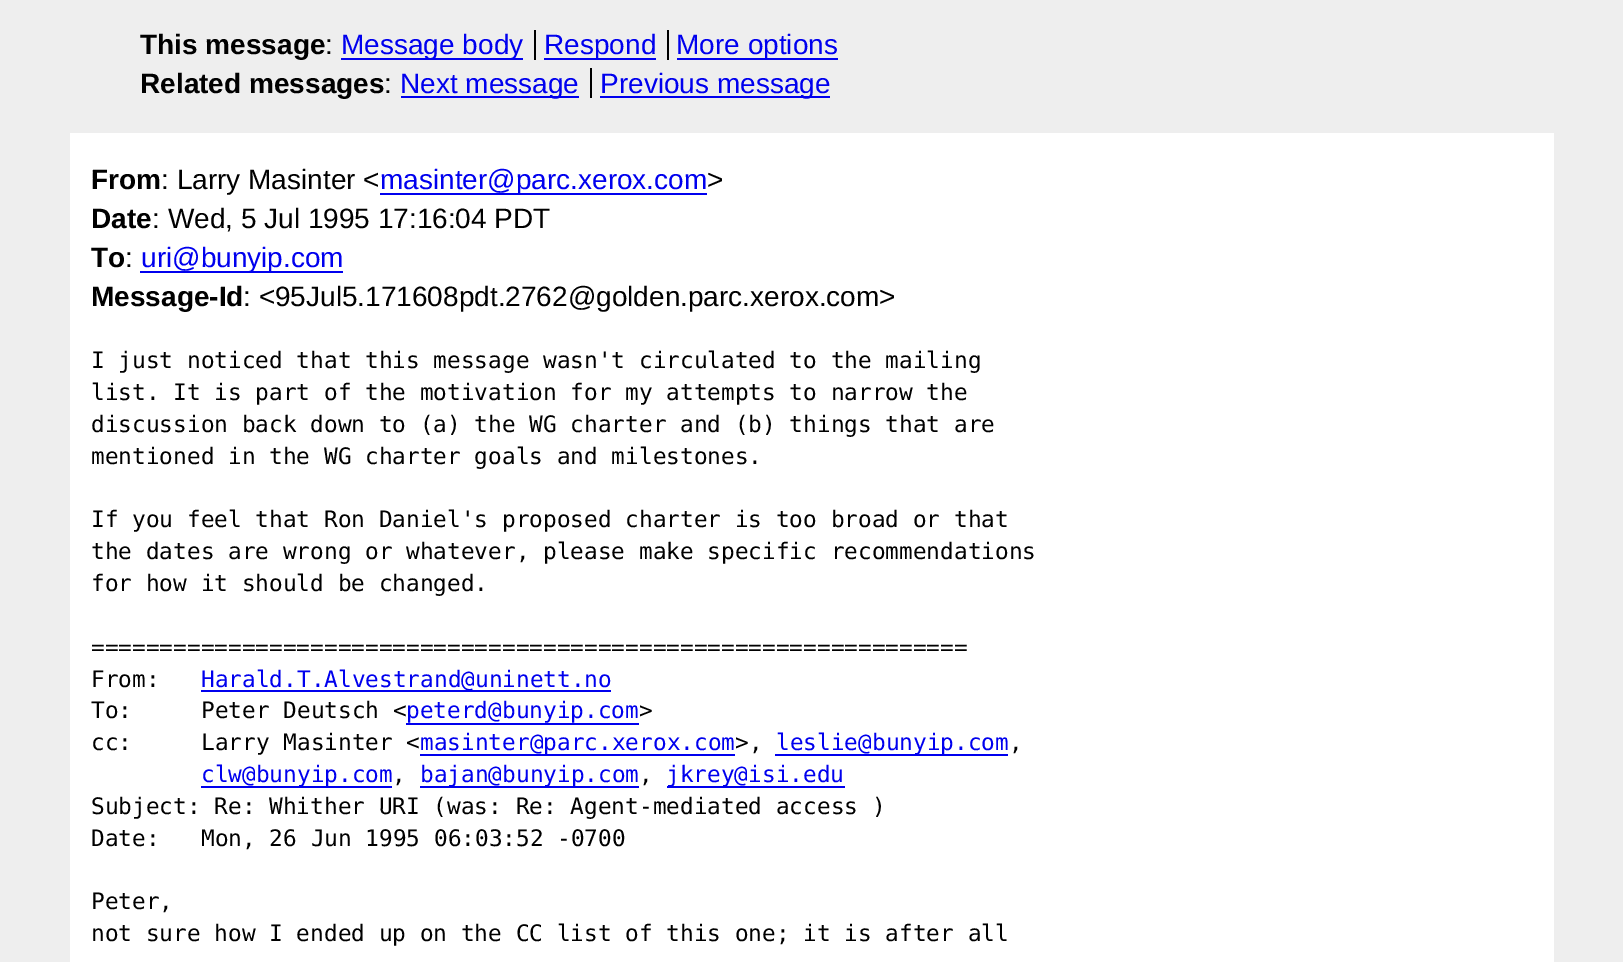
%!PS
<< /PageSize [1623 962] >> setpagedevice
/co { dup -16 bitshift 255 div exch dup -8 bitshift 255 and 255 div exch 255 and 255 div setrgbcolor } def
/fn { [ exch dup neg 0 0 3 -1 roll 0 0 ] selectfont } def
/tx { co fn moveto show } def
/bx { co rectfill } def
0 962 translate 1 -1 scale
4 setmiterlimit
0 0 1623 962 16#EEEEEE bx
341 58 182 2 16#0000EE bx
534 30 2 30 16#000000 bx
544 58 112 2 16#0000EE bx
667 30 2 30 16#000000 bx
677 58 161 2 16#0000EE bx
401 96 178 2 16#0000EE bx
590 68 2 30 16#000000 bx
600 96 230 2 16#0000EE bx
70 133 1484 829 16#FFFFFF bx
380 193 327 2 16#0000EE bx
140 271 203 2 16#0000EE bx
201 690 410 2 16#0000EE bx
406 723 233 2 16#0000EE bx
420 754 315 2 16#0000EE bx
775 754 233 2 16#0000EE bx
201 786 191 2 16#0000EE bx
420 786 219 2 16#0000EE bx
667 786 178 2 16#0000EE bx
(This message) 140 54 /LiberationSans-Bold 28 16#000000 tx
(:) 325 54 /LiberationSans-Regular 28 16#000000 tx
(Message body) 341 54 /LiberationSans-Regular 28 16#0000EE tx
(Respond) 544 54 /LiberationSans-Regular 28 16#0000EE tx
(More options) 676 54 /LiberationSans-Regular 28 16#0000EE tx
(Related messages) 140 93 /LiberationSans-Bold 28 16#000000 tx
(:) 384 93 /LiberationSans-Regular 28 16#000000 tx
(Next message) 400 93 /LiberationSans-Regular 28 16#0000EE tx
(Previous message) 600 93 /LiberationSans-Regular 28 16#0000EE tx
(From) 91 189 /LiberationSans-Bold 28 16#000000 tx
(: Larry Masinter <) 161 189 /LiberationSans-Regular 28 16#000000 tx
(masinter@parc.xerox.com) 380 189 /LiberationSans-Regular 28 16#0000EE tx
(>) 707 189 /LiberationSans-Regular 28 16#000000 tx
(Date) 91 228 /LiberationSans-Bold 28 16#000000 tx
(: Wed, 5 Jul 1995 17:16:04 PDT) 152 228 /LiberationSans-Regular 28 16#000000 tx
(To) 91 267 /LiberationSans-Bold 28 16#000000 tx
(:) 125 267 /LiberationSans-Regular 28 16#000000 tx
(uri@bunyip.com) 141 267 /LiberationSans-Regular 28 16#0000EE tx
(Message-Id) 91 306 /LiberationSans-Bold 28 16#000000 tx
(: <95Jul5.171608pdt.2762@golden.parc.xerox.com>) 243 306 /LiberationSans-Regular 28 16#000000 tx
(I just noticed that this message wasn't circulated to the mailing) 91 368 /DejaVuSansMono-Regular 22.75 16#000000 tx
(list. It is part of the motivation for my attempts to narrow the) 91 400 /DejaVuSansMono-Regular 22.75 16#000000 tx
(discussion back down to \(a\) the WG charter and \(b\) things that are) 91 432 /DejaVuSansMono-Regular 22.75 16#000000 tx
(mentioned in the WG charter goals and milestones.) 91 464 /DejaVuSansMono-Regular 22.75 16#000000 tx
(If you feel that Ron Daniel's proposed charter is too broad or that) 91 527 /DejaVuSansMono-Regular 22.75 16#000000 tx
(the dates are wrong or whatever, please make specific recommendations) 91 559 /DejaVuSansMono-Regular 22.75 16#000000 tx
(for how it should be changed.) 91 591 /DejaVuSansMono-Regular 22.75 16#000000 tx
(================================================================) 91 655 /DejaVuSansMono-Regular 22.75 16#000000 tx
(From:) 91 687 /DejaVuSansMono-Regular 22.75 16#000000 tx
(Harald.T.Alvestrand@uninett.no) 201 687 /DejaVuSansMono-Regular 22.75 16#0000EE tx
(To:) 91 718 /DejaVuSansMono-Regular 22.75 16#000000 tx
(Peter Deutsch <) 201 718 /DejaVuSansMono-Regular 22.75 16#000000 tx
(peterd@bunyip.com) 406 718 /DejaVuSansMono-Regular 22.75 16#0000EE tx
(>) 639 718 /DejaVuSansMono-Regular 22.75 16#000000 tx
(cc:) 91 750 /DejaVuSansMono-Regular 22.75 16#000000 tx
(Larry Masinter <) 201 750 /DejaVuSansMono-Regular 22.75 16#000000 tx
(masinter@parc.xerox.com) 420 750 /DejaVuSansMono-Regular 22.75 16#0000EE tx
(>,) 735 750 /DejaVuSansMono-Regular 22.75 16#000000 tx
(leslie@bunyip.com) 776 750 /DejaVuSansMono-Regular 22.75 16#0000EE tx
(,) 1009 750 /DejaVuSansMono-Regular 22.75 16#000000 tx
(clw@bunyip.com) 201 782 /DejaVuSansMono-Regular 22.75 16#0000EE tx
(,) 392 782 /DejaVuSansMono-Regular 22.75 16#000000 tx
(bajan@bunyip.com) 420 782 /DejaVuSansMono-Regular 22.75 16#0000EE tx
(,) 639 782 /DejaVuSansMono-Regular 22.75 16#000000 tx
(jkrey@isi.edu) 666 782 /DejaVuSansMono-Regular 22.75 16#0000EE tx
(Subject: Re: Whither URI \(was: Re: Agent-mediated access \)) 91 814 /DejaVuSansMono-Regular 22.75 16#000000 tx
(Date:) 91 846 /DejaVuSansMono-Regular 22.75 16#000000 tx
(Mon, 26 Jun 1995 06:03:52 -0700) 201 846 /DejaVuSansMono-Regular 22.75 16#000000 tx
(Peter,) 91 909 /DejaVuSansMono-Regular 22.75 16#000000 tx
(not sure how I ended up on the CC list of this one; it is after all) 91 941 /DejaVuSansMono-Regular 22.75 16#000000 tx
showpage
